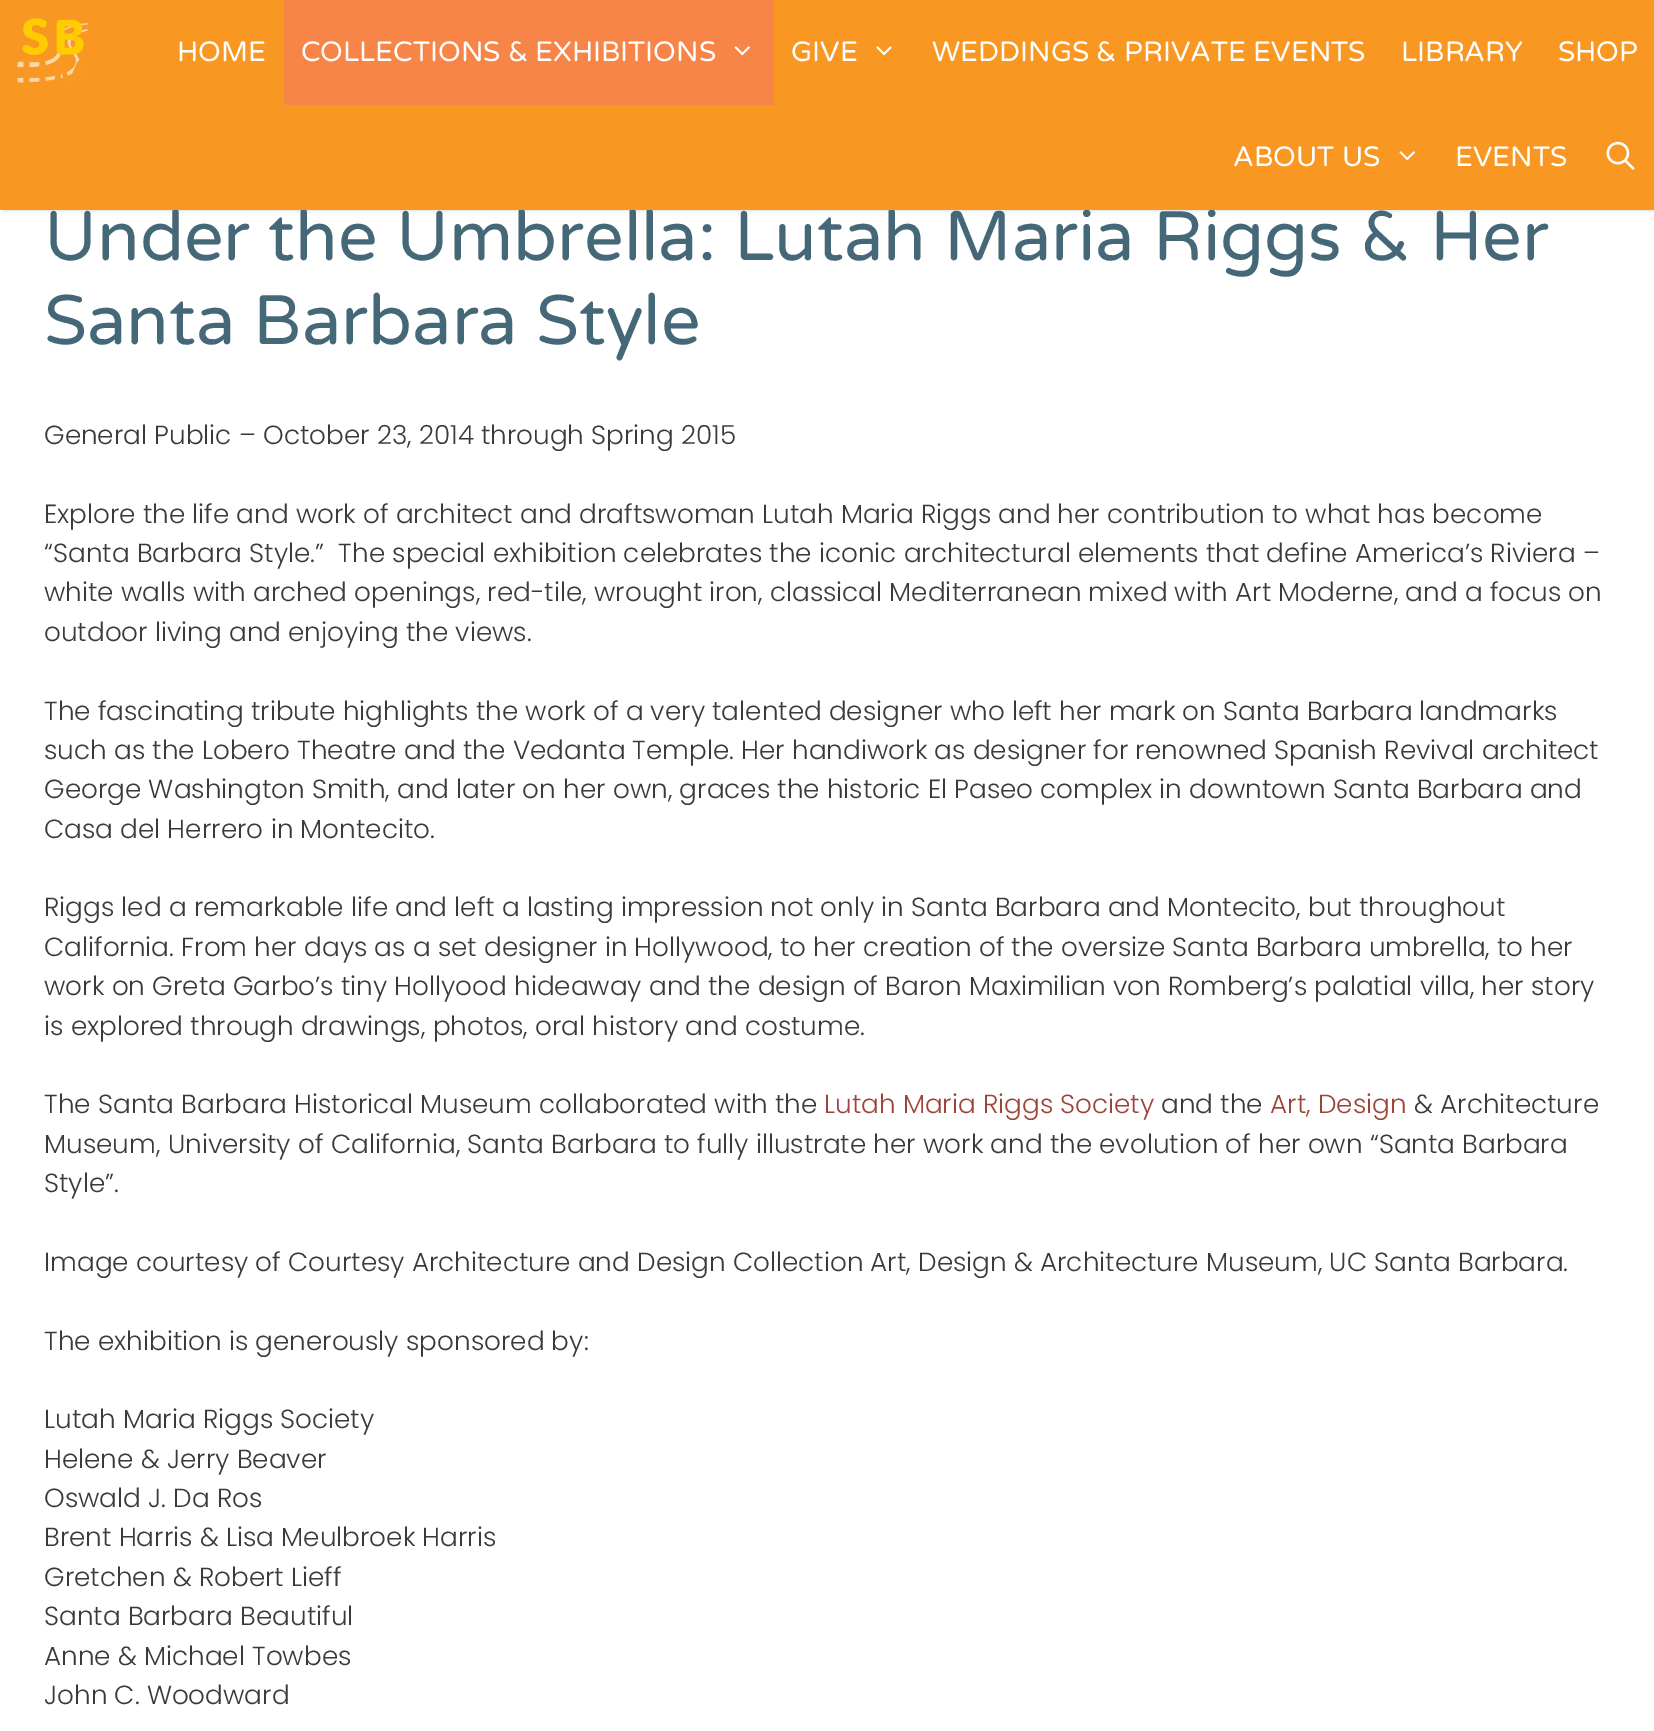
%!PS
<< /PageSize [1654 1731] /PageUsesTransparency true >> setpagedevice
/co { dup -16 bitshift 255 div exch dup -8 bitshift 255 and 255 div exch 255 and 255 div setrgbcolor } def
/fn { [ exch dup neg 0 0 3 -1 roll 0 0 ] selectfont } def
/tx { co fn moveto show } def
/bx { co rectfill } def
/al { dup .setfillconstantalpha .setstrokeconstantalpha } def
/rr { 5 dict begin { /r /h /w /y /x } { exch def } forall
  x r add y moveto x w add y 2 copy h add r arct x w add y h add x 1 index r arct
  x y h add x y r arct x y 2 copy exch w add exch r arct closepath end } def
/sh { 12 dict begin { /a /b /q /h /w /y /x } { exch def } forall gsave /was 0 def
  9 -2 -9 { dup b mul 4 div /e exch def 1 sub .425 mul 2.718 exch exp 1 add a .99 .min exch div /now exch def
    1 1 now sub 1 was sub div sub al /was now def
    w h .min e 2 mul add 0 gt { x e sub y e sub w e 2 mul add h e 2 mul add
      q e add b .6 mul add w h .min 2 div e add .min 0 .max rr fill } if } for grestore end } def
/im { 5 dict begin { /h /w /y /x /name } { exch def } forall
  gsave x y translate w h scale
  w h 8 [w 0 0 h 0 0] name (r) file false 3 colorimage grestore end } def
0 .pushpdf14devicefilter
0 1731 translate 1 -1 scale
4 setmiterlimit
0 0 1654 1731 16#FFFFFF bx
16#000000 co
4 7 1648 203 0 2 .2 sh
(Under the Umbrella: Lutah Maria Riggs & Her) 44 260 /VarelaRound-Regular 70 16#456878 tx
0 0 1654 210 16#F89823 bx
(media/5.raw) 1606 141 29 29 im
(EVENTS) 1455 166 /VarelaRound-Regular 28 16#FFFFFF tx
(media/4.raw) 1399 151 16 10 im
(ABOUT US) 1233 166 /VarelaRound-Regular 28 16#FFFFFF tx
(SHOP) 1558 61 /VarelaRound-Regular 28 16#FFFFFF tx
(LIBRARY) 1401 61 /VarelaRound-Regular 28 16#FFFFFF tx
(WEDDINGS & PRIVATE EVENTS) 932 61 /VarelaRound-Regular 28 16#FFFFFF tx
(media/3.raw) 876 46 16 10 im
(GIVE) 791 61 /VarelaRound-Regular 28 16#FFFFFF tx
284 0 490 105 16#F78547 bx
(media/2.raw) 734 46 16 10 im
(COLLECTIONS & EXHIBITIONS) 301 61 /VarelaRound-Regular 28 16#FFFFFF tx
(HOME) 177 61 /VarelaRound-Regular 28 16#FFFFFF tx
(media/1.raw) 17 18 71 65 im
(Santa Barbara Style) 44 344 /VarelaRound-Regular 70 16#456878 tx
(General Public – October 23, 2014 through Spring 2015) 44 444 /Poppins-Light 26.25 16#3A3A3A tx
(Explore the life and work of architect and draftswoman Lutah Maria Riggs and her contribution to what has become) 44 523 /Poppins-Light 26.25 16#3A3A3A tx
(“Santa Barbara Style.”  The special exhibition celebrates the iconic architectural elements that define America’s Riviera –) 44 562 /Poppins-Light 26.25 16#3A3A3A tx
(white walls with arched openings, red-tile, wrought iron, classical Mediterranean mixed with Art Moderne, and a focus on) 44 601 /Poppins-Light 26.25 16#3A3A3A tx
(outdoor living and enjoying the views.) 44 641 /Poppins-Light 26.25 16#3A3A3A tx
(The fascinating tribute highlights the work of a very talented designer who left her mark on Santa Barbara landmarks) 44 720 /Poppins-Light 26.25 16#3A3A3A tx
(such as the Lobero Theatre and the Vedanta Temple. Her handiwork as designer for renowned Spanish Revival architect) 44 759 /Poppins-Light 26.25 16#3A3A3A tx
(George Washington Smith, and later on her own, graces the historic El Paseo complex in downtown Santa Barbara and) 44 798 /Poppins-Light 26.25 16#3A3A3A tx
(Casa del Herrero in Montecito.) 44 838 /Poppins-Light 26.25 16#3A3A3A tx
(Riggs led a remarkable life and left a lasting impression not only in Santa Barbara and Montecito, but throughout) 44 916 /Poppins-Light 26.25 16#3A3A3A tx
(California. From her days as a set designer in Hollywood, to her creation of the oversize Santa Barbara umbrella, to her) 44 956 /Poppins-Light 26.25 16#3A3A3A tx
(work on Greta Garbo’s tiny Hollyood hideaway and the design of Baron Maximilian von Romberg’s palatial villa, her story) 44 995 /Poppins-Light 26.25 16#3A3A3A tx
(is explored through drawings, photos, oral history and costume.) 44 1035 /Poppins-Light 26.25 16#3A3A3A tx
(The Santa Barbara Historical Museum collaborated with the) 44 1113 /Poppins-Light 26.25 16#3A3A3A tx
(Lutah Maria Riggs Society) 824 1113 /Poppins-Light 26.25 16#9C4438 tx
(and the) 1161 1113 /Poppins-Light 26.25 16#3A3A3A tx
(Art, Design) 1270 1113 /Poppins-Light 26.25 16#9C4438 tx
(& Architecture) 1414 1113 /Poppins-Light 26.25 16#3A3A3A tx
(Museum, University of California, Santa Barbara to fully illustrate her work and the evolution of her own “Santa Barbara) 44 1153 /Poppins-Light 26.25 16#3A3A3A tx
(Style”.) 44 1192 /Poppins-Light 26.25 16#3A3A3A tx
(Image courtesy of Courtesy Architecture and Design Collection Art, Design & Architecture Museum, UC Santa Barbara.) 44 1271 /Poppins-Light 26.25 16#3A3A3A tx
(The exhibition is generously sponsored by:) 44 1350 /Poppins-Light 26.25 16#3A3A3A tx
(Lutah Maria Riggs Society) 44 1428 /Poppins-Light 26.25 16#3A3A3A tx
(Helene & Jerry Beaver) 44 1468 /Poppins-Light 26.25 16#3A3A3A tx
(Oswald J. Da Ros) 44 1507 /Poppins-Light 26.25 16#3A3A3A tx
(Brent Harris & Lisa Meulbroek Harris) 44 1546 /Poppins-Light 26.25 16#3A3A3A tx
(Gretchen & Robert Lieff) 44 1586 /Poppins-Light 26.25 16#3A3A3A tx
(Santa Barbara Beautiful) 44 1625 /Poppins-Light 26.25 16#3A3A3A tx
(Anne & Michael Towbes) 44 1665 /Poppins-Light 26.25 16#3A3A3A tx
(John C. Woodward) 44 1704 /Poppins-Light 26.25 16#3A3A3A tx
.poppdf14devicefilter showpage
